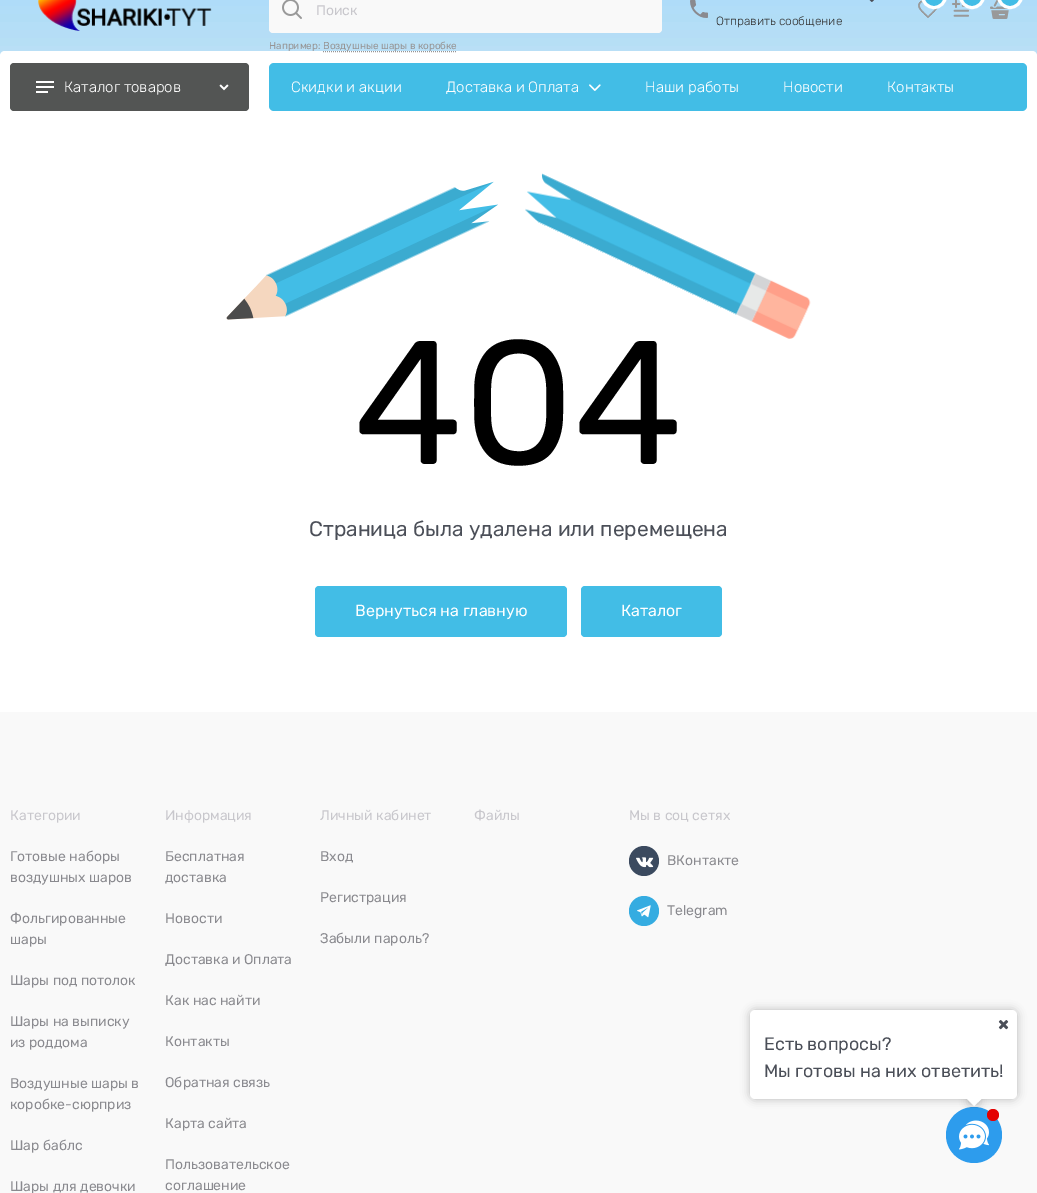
%!PS
<< /PageSize [1037 1193] /PageUsesTransparency true >> setpagedevice
/mt/moveto load def
/li/lineto load def
/ct/curveto load def
/cp/closepath load def
/fl/fill load def
/st/stroke load def
/gs/gsave load def
/gr/grestore load def
/lw/setlinewidth load def
/co { dup -16 bitshift 255 div exch dup -8 bitshift 255 and 255 div exch 255 and 255 div setrgbcolor } def
/fn { [ exch dup neg 0 0 3 -1 roll 0 0 ] selectfont } def
/tx { co fn moveto show } def
/bx { co rectfill } def
/al { dup .setfillconstantalpha .setstrokeconstantalpha } def
/ci { newpath 0 360 arc closepath } def
/rr { 5 dict begin { /r /h /w /y /x } { exch def } forall
  x r add y moveto x w add y 2 copy h add r arct x w add y h add x 1 index r arct
  x y h add x y r arct x y 2 copy exch w add exch r arct closepath end } def
/sh { 12 dict begin { /a /b /q /h /w /y /x } { exch def } forall gsave /was 0 def
  9 -2 -9 { dup b mul 4 div /e exch def 1 sub .425 mul 2.718 exch exp 1 add a .99 .min exch div /now exch def
    1 1 now sub 1 was sub div sub al /was now def
    w h .min e 2 mul add 0 gt { x e sub y e sub w e 2 mul add h e 2 mul add
      q e add b .6 mul add w h .min 2 div e add .min 0 .max rr fill } if } for grestore end } def
/im { 5 dict begin { /h /w /y /x /name } { exch def } forall
  gsave x y translate w h scale
  w h 8 [w 0 0 h 0 0] name (r) file false 3 colorimage grestore end } def
0 .pushpdf14devicefilter
0 1193 translate 1 -1 scale
4 setmiterlimit
0 0 1037 1193 16#FFFFFF bx
(media/1.raw) 0 0 1037 56 im
(media/2.raw) 38 0 174 31 im
16#F9F9F9 co
269 -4 393 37 4 rr fl
(media/3.raw) 282 0 20 19 im
16#FFFFFF co
5 51 mt 1032 51 li 1035 51 1037 53 1037 56 ct 1037 123 li 0 123 li 0 56 li 0 53 2 51 5 51 ct cp fl
16#969494 co
[1 1] 0 setdash
323 51.5 mt 457 51.5 li st
(media/4.raw) 690 0 18 18 im
(media/5.raw) 869 0 5 2 im
(media/6.raw) 918 0 20 18 im
16#42BDE6 co
922.5 -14.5 23 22 11.5 rr gs fl gr
16#FFFFFF co
3 lw
[] 0 setdash
st
(media/7.raw) 952 0 17 17 im
16#42BDE6 co
960.5 -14.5 23 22 11.5 rr gs fl gr
16#FFFFFF co
st
(media/8.raw) 990 0 20 19 im
16#42BDE6 co
998.5 -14.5 23 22 11.5 rr gs fl gr
16#FFFFFF co
st
16#535554 co
10 63 239 48 4 rr fl
(media/9.raw) 36 81 18 12 im
(media/10.raw) 219 84 10 7 im
16#42BDE6 co
269 63 758 48 5 rr fl
(media/11.raw) 589 84 12 7 im
(media/12.raw) 226 173 585 166 im
315 586 252 51 4 rr fl
581 586 141 51 4 rr fl
0 712 1037 481 16#F9F9F9 bx
16#3B4A5F co
644 861 15 ci fl
(media/13.raw) 636 857 18 11 im
16#35ACE1 co
644 911 15 ci fl
(media/14.raw) 637 905 14 13 im
16#2D9CED co
974 1135 28 ci fl
(media/16.raw) 959 1120 30 30 im
16#E40001 co
993 1115 6 ci fl
16#000000 co
750 1010 267 89 5 4.5 .25 sh
16#FFFFFF co
750 1010 267 89 5 rr fl
(media/15.raw) 998 1020 11 10 im
gs
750 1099 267 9 rectclip
16#000000 co
969 1094 10 10 0 4.5 .25 sh
gr
gs
750 1099 267 9 rectclip
974 1091.5 mt 981.5 1099 li 974 1106 li 967 1099 li cp fl
gr
(Поиск) 316 15 /Rubik-Regular 14 16#C8C7CC tx
(Например: Воздушные шары в коробке) 269 49 /Rubik-Regular 10 16#969494 tx
(Отправить сообщение) 716 25 /Rubik-Light 12 16#333333 tx
(Каталог товаров) 64 92 /Rubik-Light 15 16#FFFFFF tx
(Скидки и акции) 291 92 /Rubik-Light 15 16#FFFFFF tx
(Доставка и Оплата) 446 92 /Rubik-Light 15 16#FFFFFF tx
(Наши работы) 645 92 /Rubik-Light 15 16#FFFFFF tx
(Новости) 783 92 /Rubik-Light 15 16#FFFFFF tx
(Контакты) 887 92 /Rubik-Light 15 16#FFFFFF tx
(404) 354 464 /Rubik-Regular 176 16#000000 tx
(Страница была удалена или перемещена) 309 536 /Rubik-Regular 21 16#4B4F58 tx
(Вернуться на главную) 355 616 /Rubik-Regular 16 16#FFFFFF tx
(Каталог) 621 616 /Rubik-Regular 16 16#FFFFFF tx
(Категории) 10 820 /Rubik-Regular 14 16#C8C7CC tx
(Готовые наборы) 10 861 /Rubik-Regular 14 16#8A8A8F tx
(воздушных шаров) 10 882 /Rubik-Regular 14 16#8A8A8F tx
(Фольгированные) 10 923 /Rubik-Regular 14 16#8A8A8F tx
(шары) 10 944 /Rubik-Regular 14 16#8A8A8F tx
(Шары под потолок) 10 985 /Rubik-Regular 14 16#8A8A8F tx
(Шары на выписку) 10 1026 /Rubik-Regular 14 16#8A8A8F tx
(из роддома) 10 1047 /Rubik-Regular 14 16#8A8A8F tx
(Воздушные шары в) 10 1088 /Rubik-Regular 14 16#8A8A8F tx
(коробке-сюрприз) 10 1109 /Rubik-Regular 14 16#8A8A8F tx
(Шар баблс) 10 1150 /Rubik-Regular 14 16#8A8A8F tx
(Шары для девочки) 10 1191 /Rubik-Regular 14 16#8A8A8F tx
(Информация) 165 820 /Rubik-Regular 14 16#C8C7CC tx
(Бесплатная) 165 861 /Rubik-Regular 14 16#8A8A8F tx
(доставка) 165 882 /Rubik-Regular 14 16#8A8A8F tx
(Новости) 165 923 /Rubik-Regular 14 16#8A8A8F tx
(Доставка и Оплата) 165 964 /Rubik-Regular 14 16#8A8A8F tx
(Как нас найти) 165 1005 /Rubik-Regular 14 16#8A8A8F tx
(Контакты) 165 1046 /Rubik-Regular 14 16#8A8A8F tx
(Обратная связь) 165 1087 /Rubik-Regular 14 16#8A8A8F tx
(Карта сайта) 165 1128 /Rubik-Regular 14 16#8A8A8F tx
(Пользовательское) 165 1169 /Rubik-Regular 14 16#8A8A8F tx
(соглашение) 165 1190 /Rubik-Regular 14 16#8A8A8F tx
(Личный кабинет) 320 820 /Rubik-Regular 14 16#C8C7CC tx
(Вход) 320 861 /Rubik-Regular 14 16#8A8A8F tx
(Регистрация) 320 902 /Rubik-Regular 14 16#8A8A8F tx
(Забыли пароль?) 320 943 /Rubik-Regular 14 16#8A8A8F tx
(Файлы) 474 820 /Rubik-Regular 14 16#C8C7CC tx
(Мы в соц сетях) 629 820 /Rubik-Regular 14 16#C8C7CC tx
(ВКонтакте) 667 865 /Rubik-Regular 14 16#8A8A8F tx
(Telegram) 667 915 /Rubik-Regular 14 16#8A8A8F tx
(Есть вопросы?) 764 1050 /Rubik-Regular 18 16#4B4F58 tx
(Мы готовы на них ответить!) 764 1077 /Rubik-Regular 18 16#4B4F58 tx
.poppdf14devicefilter showpage
